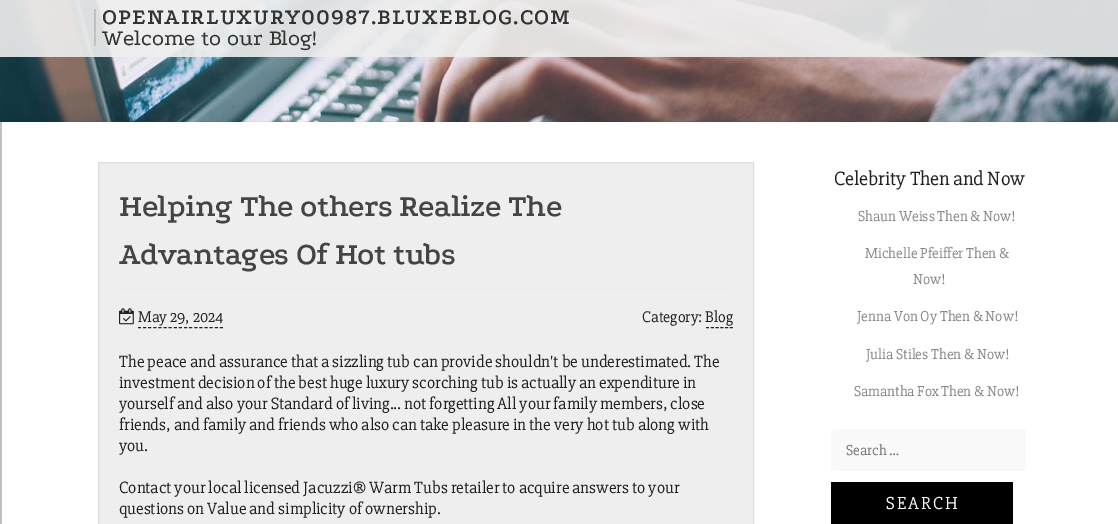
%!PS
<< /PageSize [1118 524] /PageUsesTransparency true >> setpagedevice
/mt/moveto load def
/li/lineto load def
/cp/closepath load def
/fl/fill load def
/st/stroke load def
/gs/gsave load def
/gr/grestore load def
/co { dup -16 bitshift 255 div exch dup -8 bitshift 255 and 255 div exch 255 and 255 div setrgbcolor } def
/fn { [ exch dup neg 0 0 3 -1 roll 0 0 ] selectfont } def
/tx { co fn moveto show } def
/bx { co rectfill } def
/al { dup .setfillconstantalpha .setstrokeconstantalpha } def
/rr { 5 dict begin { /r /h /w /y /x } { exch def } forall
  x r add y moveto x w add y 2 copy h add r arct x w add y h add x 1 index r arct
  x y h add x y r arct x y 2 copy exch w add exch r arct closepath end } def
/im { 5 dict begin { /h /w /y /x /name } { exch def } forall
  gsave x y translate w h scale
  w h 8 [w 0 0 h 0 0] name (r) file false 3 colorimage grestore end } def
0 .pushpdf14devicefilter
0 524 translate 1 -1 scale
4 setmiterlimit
0 0 1118 524 16#FFFFFF bx
(media/1.raw) 0 0 1118 122 im
0.9 al
0 0 1118 57 16#EEEEEE bx
1 al
94 9 2 37 16#C1C1C1 bx
0 122 2 402 16#C1C1C1 bx
16#EEEEEE co
98.5 162.5 mt 753.5 162.5 li 753.5 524.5 li 98.5 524.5 li cp gs fl gr
16#DCDCDC co
st
119 289 614 1 16#E9E9E9 bx
(media/2.raw) 119 308 15 17 im
16#222222 co
[3 2.12] 0 setdash
138 327.5 mt 223 327.5 li st
[3 1.8] 0 setdash
706 327.5 mt 733 327.5 li st
16#F9F9F9 co
831 429 195 42 3 rr fl
831 482 182 42 16#000000 bx
/Podkova-SemiBold 23 fn
16#333333 co
102 24 mt 1 0 (OPENAIRLUXURY00987.BLUXEBLOG.COM) ashow
(Welcome to our Blog!) 102 45 /Podkova-Regular 23 16#333333 tx
/Podkova-SemiBold 32 fn
16#444444 co
119 216 mt -.6 0 (Helping The others Realize The) ashow
119 264 mt -.6 0 (Advantages Of Hot tubs) ashow
(May 29, 2024) 138 322 /Slabo27px-Regular 16 16#222222 tx
(Category: Blog) 642 322 /Slabo27px-Regular 16 16#222222 tx
(The peace and assurance that a sizzling tub can provide shouldn't be underestimated. The) 119 367 /Slabo27px-Regular 17 16#222222 tx
(investment decision of the best huge luxury scorching tub is actually an expenditure in) 119 388 /Slabo27px-Regular 17 16#222222 tx
(yourself and also your Standard of living... not forgetting All your family members, close) 119 409 /Slabo27px-Regular 17 16#222222 tx
(friends, and family and friends who also can take pleasure in the very hot tub along with) 119 430 /Slabo27px-Regular 17 16#222222 tx
(you.) 119 451 /Slabo27px-Regular 17 16#222222 tx
(Contact your local licensed Jacuzzi® Warm Tubs retailer to acquire answers to your) 119 493 /Slabo27px-Regular 17 16#222222 tx
(questions on Value and simplicity of ownership.) 119 514 /Slabo27px-Regular 17 16#222222 tx
(Celebrity Then and Now) 834 185 /Slabo27px-Regular 20 16#222222 tx
(Shaun Weiss Then & Now!) 858 221 /Slabo27px-Regular 15 16#888888 tx
(Michelle Pfeiffer Then &) 865 258 /Slabo27px-Regular 15 16#888888 tx
(Now!) 913 284 /Slabo27px-Regular 15 16#888888 tx
(Jenna Von Oy Then & Now!) 857 321 /Slabo27px-Regular 15 16#888888 tx
(Julia Stiles Then & Now!) 866 359 /Slabo27px-Regular 15 16#888888 tx
(Samantha Fox Then & Now!) 854 396 /Slabo27px-Regular 15 16#888888 tx
(Search …) 846 455 /Slabo27px-Regular 15 16#757575 tx
/Slabo27px-Regular 18 fn
16#F9F9F9 co
886 509 mt 2 0 (SEARCH) ashow
.poppdf14devicefilter showpage
